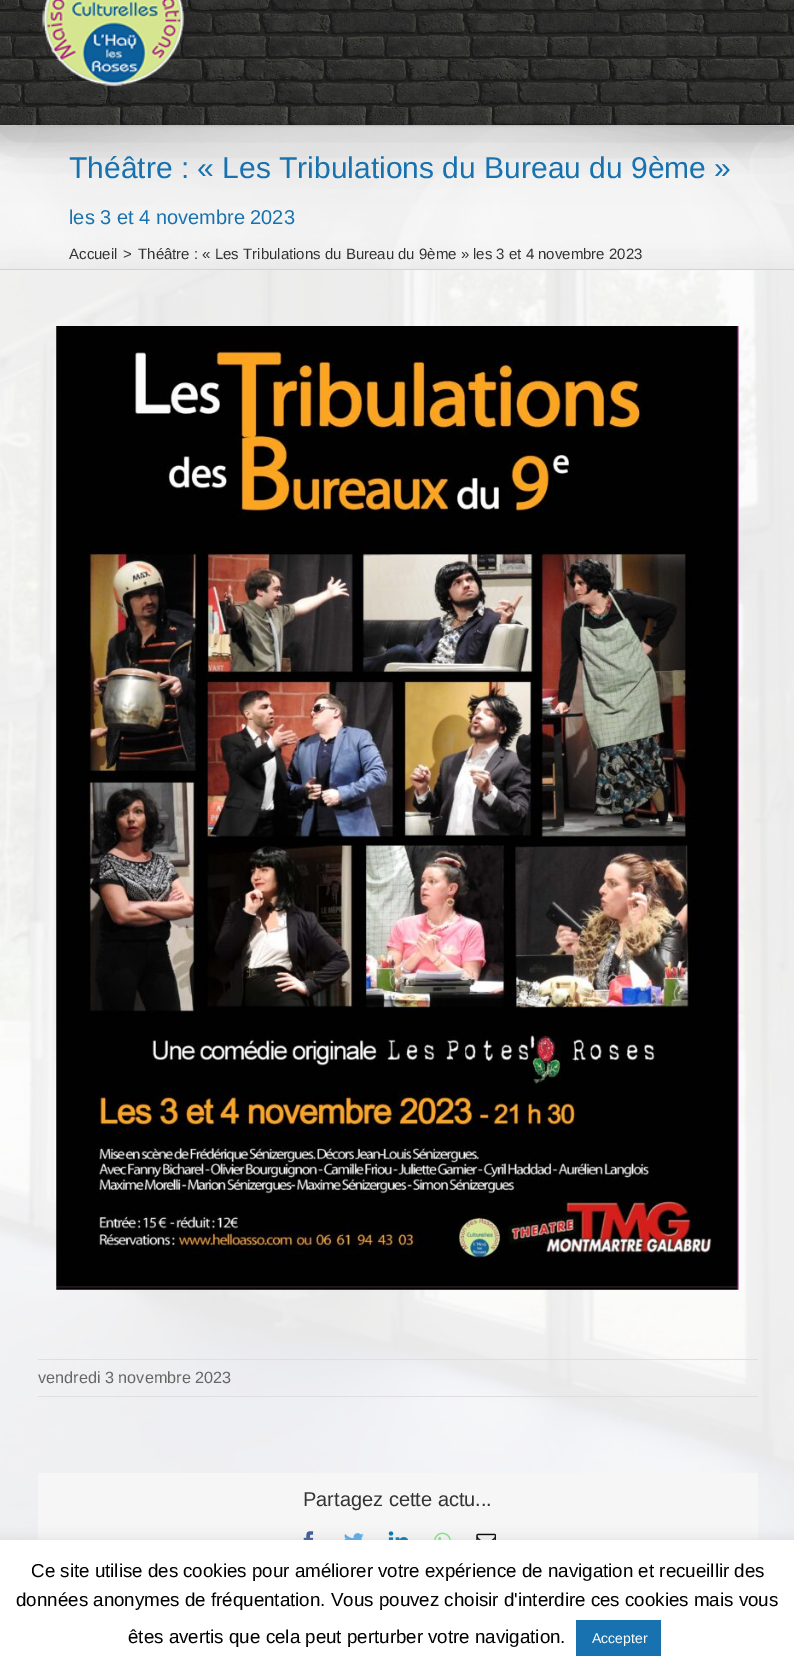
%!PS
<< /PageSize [794 1677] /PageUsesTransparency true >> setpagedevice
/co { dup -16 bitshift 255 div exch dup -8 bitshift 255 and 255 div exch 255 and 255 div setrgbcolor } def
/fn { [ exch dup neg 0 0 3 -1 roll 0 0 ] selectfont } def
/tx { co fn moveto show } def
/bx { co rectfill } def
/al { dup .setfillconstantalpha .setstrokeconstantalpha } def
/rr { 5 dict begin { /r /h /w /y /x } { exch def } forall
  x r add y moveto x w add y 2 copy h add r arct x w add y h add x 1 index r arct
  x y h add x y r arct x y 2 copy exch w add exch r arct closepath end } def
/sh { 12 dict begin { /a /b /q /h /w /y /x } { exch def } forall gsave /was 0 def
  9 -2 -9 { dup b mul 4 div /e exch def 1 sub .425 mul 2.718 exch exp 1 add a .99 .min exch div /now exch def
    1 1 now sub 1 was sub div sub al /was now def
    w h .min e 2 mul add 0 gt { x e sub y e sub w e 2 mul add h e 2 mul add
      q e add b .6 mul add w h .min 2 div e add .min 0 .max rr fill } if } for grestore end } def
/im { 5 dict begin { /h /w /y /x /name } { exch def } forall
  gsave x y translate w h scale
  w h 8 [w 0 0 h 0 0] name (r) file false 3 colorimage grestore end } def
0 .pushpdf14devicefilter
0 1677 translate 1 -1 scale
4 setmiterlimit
0 0 794 1677 16#FFFFFF bx
(media/1.raw) 0 270 794 1270 im
0 126 794 143 16#F6F6F6 bx
(media/4.raw) 0 126 794 143 im
0 125 794 1 16#D2D3D4 bx
16#000000 co
3 -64 790 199 0 31 .14 sh
(media/2.raw) 0 0 794 125 im
(media/3.raw) 42 0 142 87 im
0 269 794 1 16#D2D3D4 bx
0.48 al
0 270 794 1270 16#FAFAFA bx
1 al
(media/5.raw) 56 326 683 964 im
38 1359 720 1 16#E0DEDE bx
38 1396 720 1 16#E0DEDE bx
38 1473 720 67 16#F6F6F6 bx
(media/6.raw) 303 1531 11 9 im
(media/7.raw) 344 1533 20 7 im
(media/8.raw) 388 1531 21 9 im
(media/9.raw) 434 1532 17 8 im
(media/10.raw) 476 1533 20 7 im
16#ACABAB co
0 1539 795 137 0 6 .3 sh
0 1540 794 137 16#FFFFFF bx
576 1620 85 36 16#1772AF bx
(Théâtre : « Les Tribulations du Bureau du 9ème ») 69 178 /LiberationSans-Regular 30 16#1772AF tx
(les 3 et 4 novembre 2023) 69 224 /LiberationSans-Regular 20 16#1772AF tx
(Accueil) 69 259 /LiberationSans-Regular 15 16#333333 tx
(>) 123 259 /LiberationSans-Regular 15 16#333333 tx
(Théâtre : « Les Tribulations du Bureau du 9ème » les 3 et 4 novembre 2023) 138 259 /LiberationSans-Regular 15 16#333333 tx
(vendredi 3 novembre 2023) 38 1383 /LiberationSans-Regular 16.25 16#666666 tx
(Partagez cette actu...) 303 1506 /LiberationSans-Regular 20 16#333333 tx
(Ce site utilise des cookies pour améliorer votre expérience de navigation et recueillir des) 31 1577 /LiberationSans-Regular 18.75 16#000000 tx
(données anonymes de fréquentation. Vous pouvez choisir d'interdire ces cookies mais vous) 16 1606 /LiberationSans-Regular 18.75 16#000000 tx
(êtes avertis que cela peut perturber votre navigation.) 128 1643 /LiberationSans-Regular 18.75 16#000000 tx
(Accepter) 592 1643 /LiberationSans-Regular 14 16#FFFFFF tx
.poppdf14devicefilter showpage
